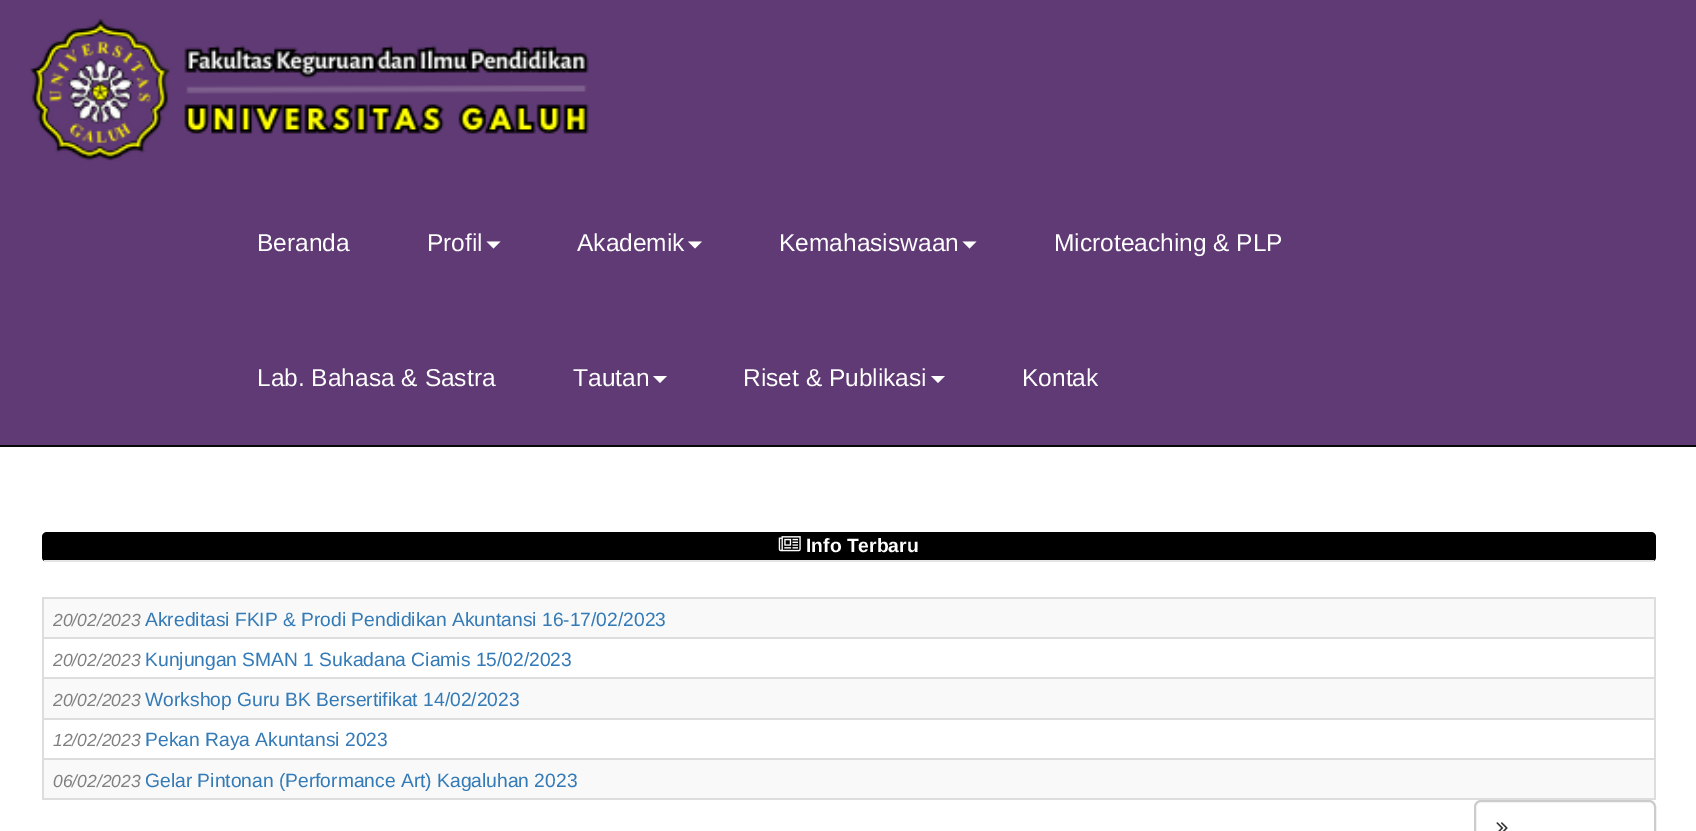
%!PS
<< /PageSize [1696 831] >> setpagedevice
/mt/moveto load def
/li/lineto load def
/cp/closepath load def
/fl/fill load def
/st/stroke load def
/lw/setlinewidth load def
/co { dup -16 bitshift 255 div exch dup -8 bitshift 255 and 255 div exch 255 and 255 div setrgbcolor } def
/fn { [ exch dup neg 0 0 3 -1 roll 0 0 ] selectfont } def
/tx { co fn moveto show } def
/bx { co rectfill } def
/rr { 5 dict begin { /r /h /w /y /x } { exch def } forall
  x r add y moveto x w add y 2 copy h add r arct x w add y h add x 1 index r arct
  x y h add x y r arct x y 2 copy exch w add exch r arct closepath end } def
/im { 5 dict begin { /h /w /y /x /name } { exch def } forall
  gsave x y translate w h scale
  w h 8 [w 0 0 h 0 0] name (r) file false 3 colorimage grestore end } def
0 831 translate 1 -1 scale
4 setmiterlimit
0 0 1696 831 16#FFFFFF bx
0 0 1696 445 16#603A75 bx
0 445 1696 2 16#080808 bx
(media/1.raw) 30 18 559 143 im
16#FFFFFF co
486.5 241.5 mt 500.5 241.5 li 493.5 248.5 li cp fl
688 241.5 mt 702 241.5 li 695 248.5 li cp fl
962.5 241.5 mt 976.5 241.5 li 969.5 248.5 li cp fl
653 376 mt 667 376 li 660 383 li cp fl
931 376 mt 945 376 li 938 383 li cp fl
16#000000 co
42 532 1614 30 5 rr fl
44 560 1610 2 16#E5E5E5 bx
(media/2.raw) 778 536 23 16 im
42 597 1614 2 16#DDDDDD bx
1654 597 2 203 16#DDDDDD bx
42 798 1614 2 16#DDDDDD bx
42 597 2 203 16#DDDDDD bx
44 599 1610 38 16#F9F9F9 bx
42 637 1614 2 16#DDDDDD bx
44 679 1610 39 16#F9F9F9 bx
42 677 1614 2 16#DDDDDD bx
42 718 1614 2 16#DDDDDD bx
44 760 1610 38 16#F9F9F9 bx
42 758 1614 2 16#DDDDDD bx
16#CCCCCC co
2 lw
1475 801 180 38 6 rr st
(media/3.raw) 1496 822 12 9 im
(Beranda) 257 251 /LiberationSans-Regular 24.5 16#FFFFFF tx
(Profil) 427 251 /LiberationSans-Regular 24.5 16#FFFFFF tx
(Akademik) 577 251 /LiberationSans-Regular 24.5 16#FFFFFF tx
(Kemahasiswaan) 779 251 /LiberationSans-Regular 24.5 16#FFFFFF tx
(Microteaching & PLP) 1054 251 /LiberationSans-Regular 24.5 16#FFFFFF tx
(Lab. Bahasa & Sastra) 257 386 /LiberationSans-Regular 24.5 16#FFFFFF tx
(Tautan) 573 386 /LiberationSans-Regular 24.5 16#FFFFFF tx
(Riset & Publikasi) 743 386 /LiberationSans-Regular 24.5 16#FFFFFF tx
(Kontak) 1022 386 /LiberationSans-Regular 24.5 16#FFFFFF tx
(Info Terbaru) 806 552 /LiberationSans-Bold 19.25 16#FFFFFF tx
(20/02/2023) 53 626 /LiberationSans-Italic 17.5 16#808080 tx
(Akreditasi FKIP & Prodi Pendidikan Akuntansi 16-17/02/2023) 145 626 /LiberationSans-Regular 19.25 16#337AB7 tx
(20/02/2023) 53 666 /LiberationSans-Italic 17.5 16#808080 tx
(Kunjungan SMAN 1 Sukadana Ciamis 15/02/2023) 145 666 /LiberationSans-Regular 19.25 16#337AB7 tx
(20/02/2023) 53 706 /LiberationSans-Italic 17.5 16#808080 tx
(Workshop Guru BK Bersertifikat 14/02/2023) 145 706 /LiberationSans-Regular 19.25 16#337AB7 tx
(12/02/2023) 53 746 /LiberationSans-Italic 17.5 16#808080 tx
(Pekan Raya Akuntansi 2023) 145 746 /LiberationSans-Regular 19.25 16#337AB7 tx
(06/02/2023) 53 787 /LiberationSans-Italic 17.5 16#808080 tx
(Gelar Pintonan \(Performance Art\) Kagaluhan 2023) 145 787 /LiberationSans-Regular 19.25 16#337AB7 tx
showpage
